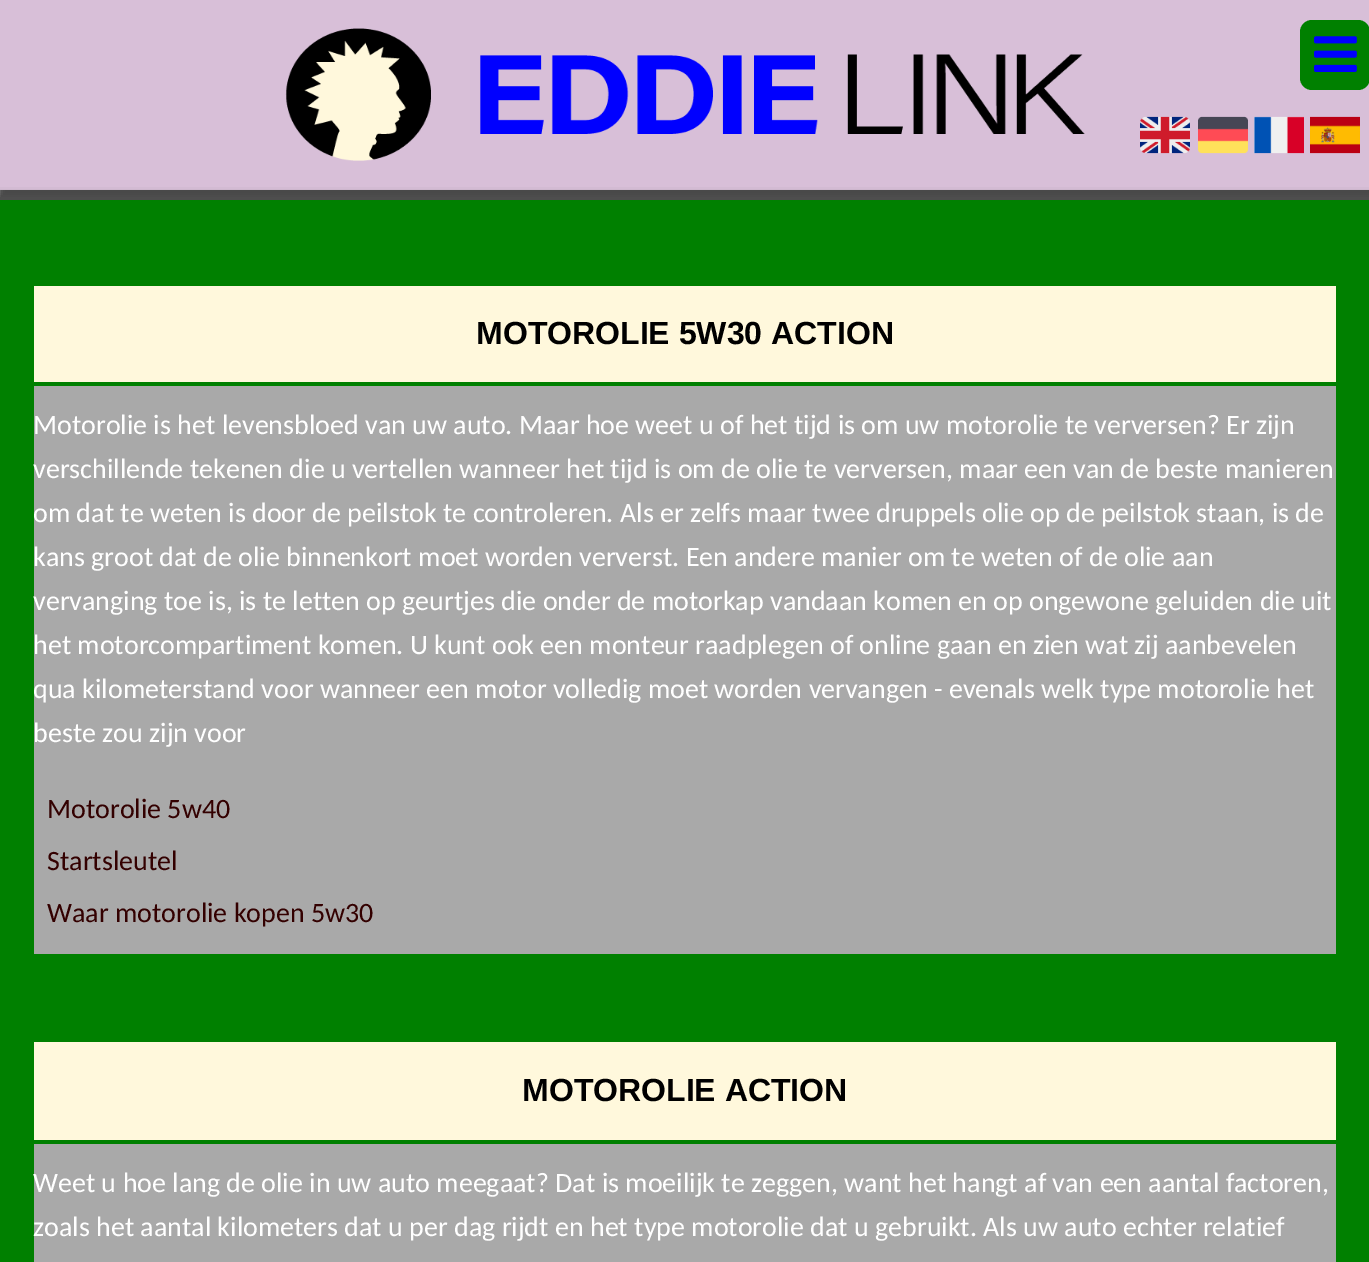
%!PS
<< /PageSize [1369 1262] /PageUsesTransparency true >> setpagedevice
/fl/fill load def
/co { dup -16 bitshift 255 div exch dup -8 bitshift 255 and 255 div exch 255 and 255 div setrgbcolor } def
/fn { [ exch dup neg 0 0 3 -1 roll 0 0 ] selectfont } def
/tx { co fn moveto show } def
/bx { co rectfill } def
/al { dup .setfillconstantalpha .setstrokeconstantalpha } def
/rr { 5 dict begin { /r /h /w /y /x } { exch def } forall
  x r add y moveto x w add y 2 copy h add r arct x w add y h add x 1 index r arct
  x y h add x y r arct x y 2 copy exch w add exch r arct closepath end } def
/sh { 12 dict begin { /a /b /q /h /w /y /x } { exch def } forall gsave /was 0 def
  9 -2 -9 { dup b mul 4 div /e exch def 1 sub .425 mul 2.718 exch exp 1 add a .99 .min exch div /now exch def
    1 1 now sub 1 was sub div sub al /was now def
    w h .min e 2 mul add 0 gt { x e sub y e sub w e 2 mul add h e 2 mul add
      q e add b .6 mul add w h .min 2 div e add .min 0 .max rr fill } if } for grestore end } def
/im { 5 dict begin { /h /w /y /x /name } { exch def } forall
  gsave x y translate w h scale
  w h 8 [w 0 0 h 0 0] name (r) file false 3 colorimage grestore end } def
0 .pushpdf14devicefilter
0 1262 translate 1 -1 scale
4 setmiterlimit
0 0 1369 1262 16#FFFFFF bx
16#444444 co
-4 -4 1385 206 0 4 1 sh
0 0 1369 190 16#D8BFD8 bx
(media/1.raw) 285 28 800 133 im
16#008000 co
1300 20 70 70 12 rr fl
(media/2.raw) 1314 36 43 36 im
(media/3.raw) 1140 116 50 38 im
(media/4.raw) 1198 116 50 38 im
(media/5.raw) 1254 116 50 38 im
(media/6.raw) 1310 116 50 38 im
16#444444 co
-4 196 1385 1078 0 4 1 sh
0 200 1369 1062 16#008000 bx
34 286 1302 96 16#FFF8DC bx
34 386 1302 568 16#A9A9A9 bx
34 1042 1302 98 16#FFF8DC bx
34 1144 1302 118 16#A9A9A9 bx
(MOTOROLIE 5W30 ACTION) 476 344 /LiberationSans-Bold 32 16#000000 tx
(Motorolie is het levensbloed van uw auto. Maar hoe weet u of het tijd is om uw motorolie te verversen? Er zijn) 33 434 /Carlito-Regular 28 16#FFFFFF tx
(verschillende tekenen die u vertellen wanneer het tijd is om de olie te verversen, maar een van de beste manieren) 33 478 /Carlito-Regular 28 16#FFFFFF tx
(om dat te weten is door de peilstok te controleren. Als er zelfs maar twee druppels olie op de peilstok staan, is de) 33 522 /Carlito-Regular 28 16#FFFFFF tx
(kans groot dat de olie binnenkort moet worden ververst. Een andere manier om te weten of de olie aan) 33 566 /Carlito-Regular 28 16#FFFFFF tx
(vervanging toe is, is te letten op geurtjes die onder de motorkap vandaan komen en op ongewone geluiden die uit) 33 610 /Carlito-Regular 28 16#FFFFFF tx
(het motorcompartiment komen. U kunt ook een monteur raadplegen of online gaan en zien wat zij aanbevelen) 33 654 /Carlito-Regular 28 16#FFFFFF tx
(qua kilometerstand voor wanneer een motor volledig moet worden vervangen - evenals welk type motorolie het) 33 698 /Carlito-Regular 28 16#FFFFFF tx
(beste zou zijn voor) 33 742 /Carlito-Regular 28 16#FFFFFF tx
(Motorolie 5w40) 47 818 /Carlito-Regular 28 16#330000 tx
(Startsleutel) 47 870 /Carlito-Regular 28 16#330000 tx
(Waar motorolie kopen 5w30) 47 922 /Carlito-Regular 28 16#330000 tx
(MOTOROLIE ACTION) 522 1101 /LiberationSans-Bold 32 16#000000 tx
(Weet u hoe lang de olie in uw auto meegaat? Dat is moeilijk te zeggen, want het hangt af van een aantal factoren,) 33 1192 /Carlito-Regular 28 16#FFFFFF tx
(zoals het aantal kilometers dat u per dag rijdt en het type motorolie dat u gebruikt. Als uw auto echter relatief) 33 1236 /Carlito-Regular 28 16#FFFFFF tx
.poppdf14devicefilter showpage
